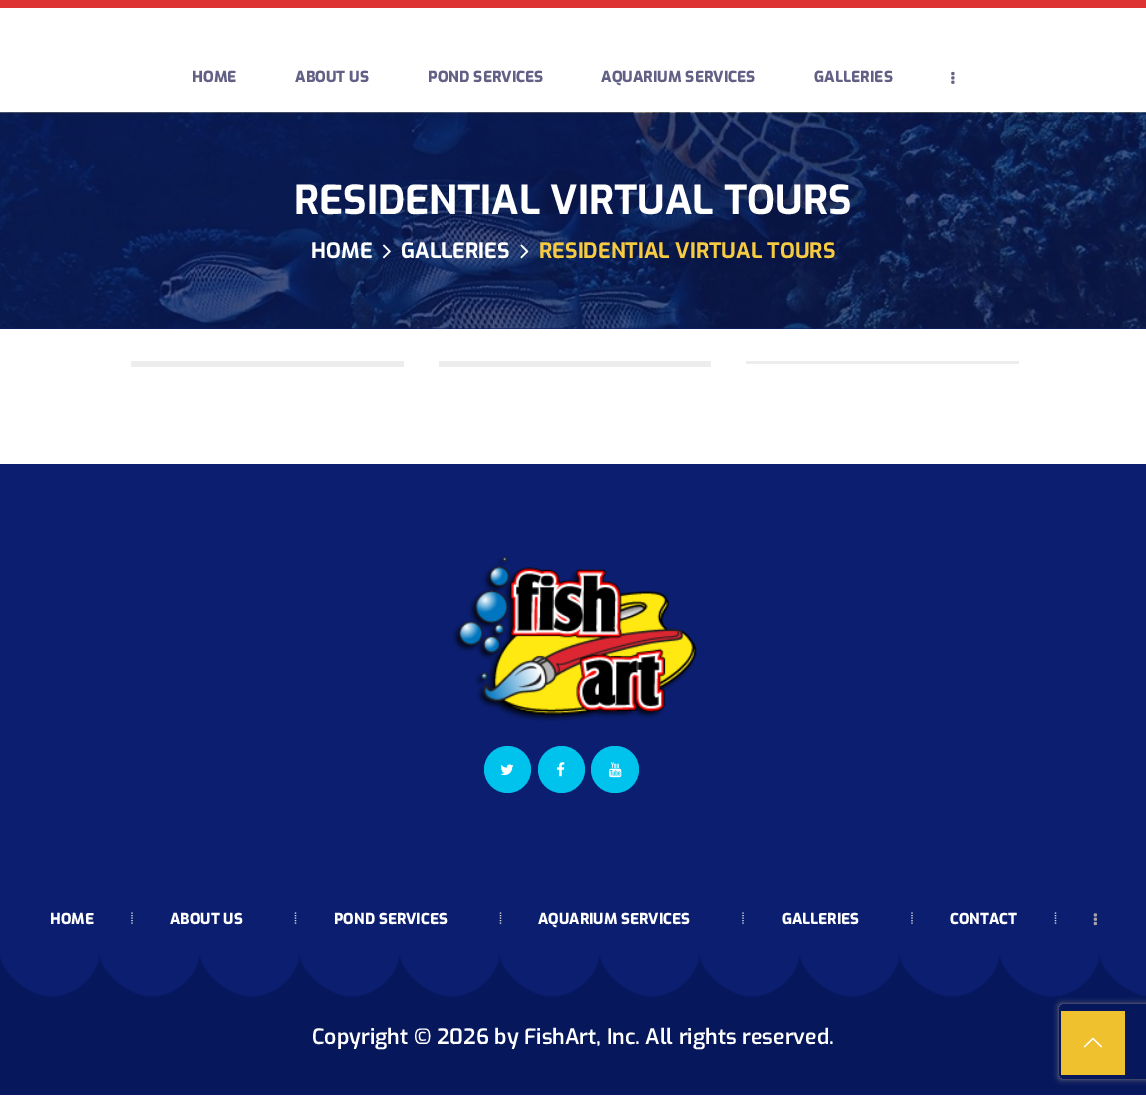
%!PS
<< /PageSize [1146 1096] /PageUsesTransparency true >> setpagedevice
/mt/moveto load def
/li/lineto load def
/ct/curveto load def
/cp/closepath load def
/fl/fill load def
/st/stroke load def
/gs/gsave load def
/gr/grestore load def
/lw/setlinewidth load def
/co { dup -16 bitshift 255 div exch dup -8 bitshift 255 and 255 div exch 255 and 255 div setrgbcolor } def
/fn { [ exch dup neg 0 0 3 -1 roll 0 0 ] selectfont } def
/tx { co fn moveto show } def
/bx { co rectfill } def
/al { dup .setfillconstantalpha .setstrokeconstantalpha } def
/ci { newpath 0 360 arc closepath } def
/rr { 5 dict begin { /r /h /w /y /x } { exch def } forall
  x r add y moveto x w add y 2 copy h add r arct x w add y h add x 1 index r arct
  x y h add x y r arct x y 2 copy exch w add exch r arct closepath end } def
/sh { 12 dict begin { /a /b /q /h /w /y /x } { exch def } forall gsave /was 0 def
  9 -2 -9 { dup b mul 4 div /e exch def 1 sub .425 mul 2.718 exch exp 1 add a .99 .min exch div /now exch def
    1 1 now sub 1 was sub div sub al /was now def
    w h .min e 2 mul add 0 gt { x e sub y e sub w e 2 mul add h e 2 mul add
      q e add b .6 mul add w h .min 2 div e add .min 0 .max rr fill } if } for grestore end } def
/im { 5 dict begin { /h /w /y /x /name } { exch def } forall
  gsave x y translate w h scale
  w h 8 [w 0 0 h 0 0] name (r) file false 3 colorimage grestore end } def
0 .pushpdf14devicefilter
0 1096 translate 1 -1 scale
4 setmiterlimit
0 0 1146 1096 16#FFFFFF bx
0 0 1146 8 16#DD3333 bx
(media/1.raw) 951 71 4 13 im
0 328 1146 1 16#0B1E70 bx
(media/2.raw) 0 112 1146 217 im
(media/3.raw) 382 244 9 15 im
(media/4.raw) 520 244 9 15 im
131 361 273 6 16#EDEDED bx
439 361 272 6 16#EDEDED bx
746 361 273 3 16#EDEDED bx
0 464 1146 631 16#0B1E70 bx
(media/5.raw) 452 556 245 166 im
16#00C3ED co
507.5 769.5 23.5 ci fl
(media/6.raw) 500 764 14 12 im
561.5 769.5 23.5 ci fl
(media/7.raw) 557 762 8 15 im
591 746 48 47 23.5 rr fl
(media/8.raw) 609 762 13 16 im
16#DDDDDD co
1.2 lw
[1.25 1.25] 0 setdash
132 912.5 mt 132 924 li st
295.5 912.5 mt 295.5 924 li st
500.5 912.5 mt 500.5 924 li st
743 912.5 mt 743 924 li st
912 912.5 mt 912 924 li st
1055.5 912.5 mt 1055.5 924 li st
(media/9.raw) 1093 913 4 13 im
(media/10.raw) 0 954 1146 141 im
gs
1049 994 mt 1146 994 li 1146 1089 li 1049 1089 li cp 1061.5 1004 mt 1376.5 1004 li 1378 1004 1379 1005 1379 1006.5 ct 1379 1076.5 li 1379 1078 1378 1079 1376.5 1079 ct 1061.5 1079 li 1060 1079 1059 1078 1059 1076.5 ct 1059 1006.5 li 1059 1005 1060 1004 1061.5 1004 ct cp eoclip newpath
16#808080 co
1059 1004 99 75 2.5 3 1 sh
gr
1061 1011 64 64 16#EFC12F bx
(media/11.raw) 1083 1037 20 11 im
(HOME) 192 82 /Exo-ExtraBold 15.25 16#626085 tx
(ABOUT US) 295 82 /Exo-ExtraBold 15.25 16#626085 tx
(POND SERVICES) 428 82 /Exo-ExtraBold 15.25 16#626085 tx
(AQUARIUM SERVICES) 601 82 /Exo-ExtraBold 15.25 16#626085 tx
(GALLERIES) 814 82 /Exo-ExtraBold 15.25 16#626085 tx
(RESIDENTIAL VIRTUAL TOURS) 294 214 /Exo-Bold 40 16#FFFFFF tx
(HOME) 311 258 /Exo-Bold 21.25 16#FFFFFF tx
(GALLERIES) 401 258 /Exo-Bold 21.25 16#FFFFFF tx
(RESIDENTIAL VIRTUAL TOURS) 539 258 /Exo-Bold 21.25 16#F7CB41 tx
(HOME) 50 924 /Exo-ExtraBold 15 16#FFFFFF tx
(ABOUT US) 170 924 /Exo-ExtraBold 15 16#FFFFFF tx
(POND SERVICES) 334 924 /Exo-ExtraBold 15 16#FFFFFF tx
(AQUARIUM SERVICES) 538 924 /Exo-ExtraBold 15 16#FFFFFF tx
(GALLERIES) 782 924 /Exo-ExtraBold 15 16#FFFFFF tx
(CONTACT) 950 924 /Exo-ExtraBold 15 16#FFFFFF tx
(Copyright © 2026 by FishArt, Inc. All rights reserved.) 312 1044 /Exo-SemiBold 21.25 16#FFFFFF tx
.poppdf14devicefilter showpage
